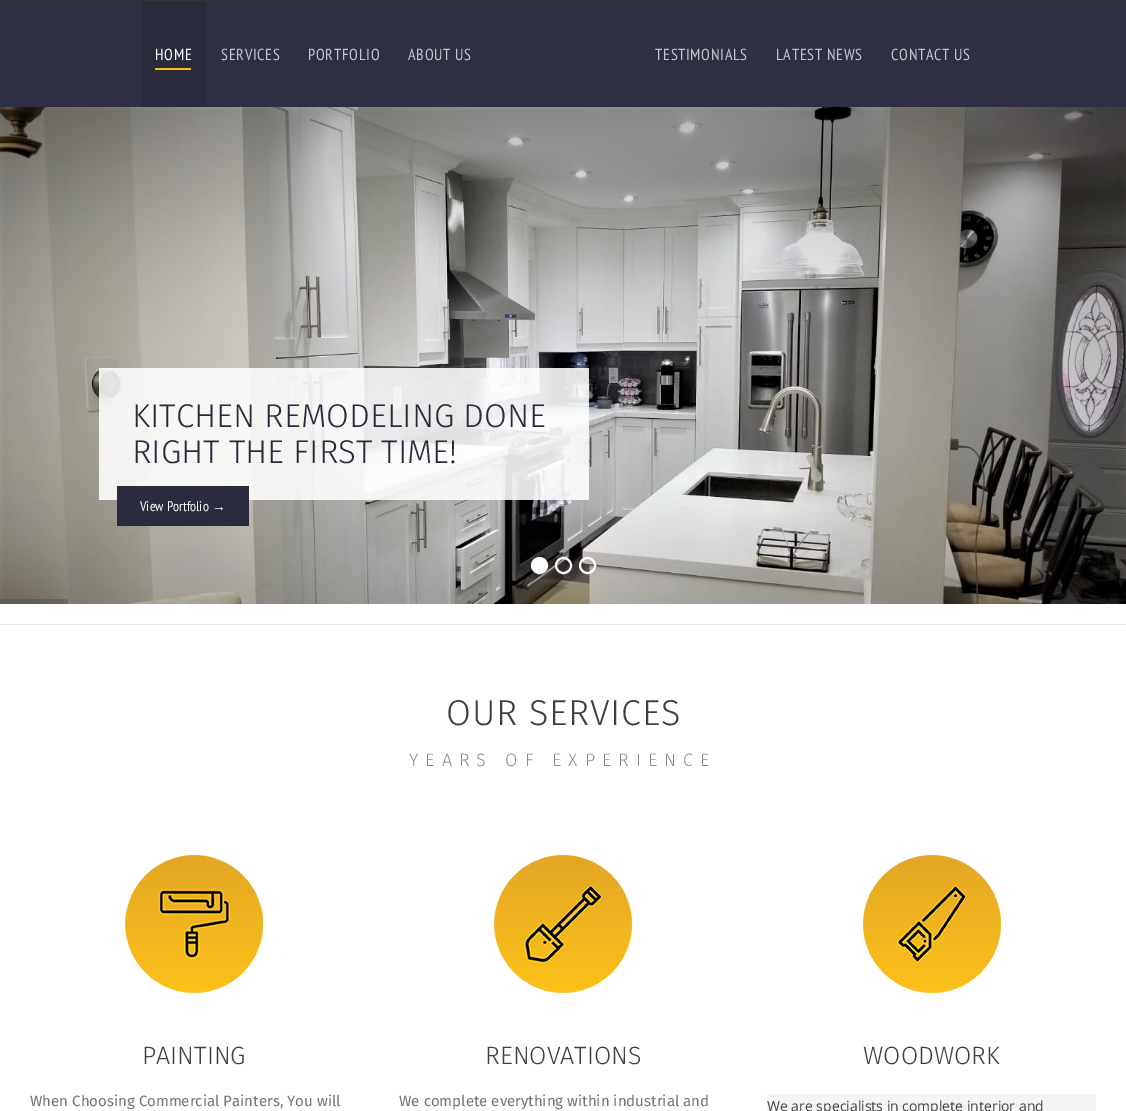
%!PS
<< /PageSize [1126 1111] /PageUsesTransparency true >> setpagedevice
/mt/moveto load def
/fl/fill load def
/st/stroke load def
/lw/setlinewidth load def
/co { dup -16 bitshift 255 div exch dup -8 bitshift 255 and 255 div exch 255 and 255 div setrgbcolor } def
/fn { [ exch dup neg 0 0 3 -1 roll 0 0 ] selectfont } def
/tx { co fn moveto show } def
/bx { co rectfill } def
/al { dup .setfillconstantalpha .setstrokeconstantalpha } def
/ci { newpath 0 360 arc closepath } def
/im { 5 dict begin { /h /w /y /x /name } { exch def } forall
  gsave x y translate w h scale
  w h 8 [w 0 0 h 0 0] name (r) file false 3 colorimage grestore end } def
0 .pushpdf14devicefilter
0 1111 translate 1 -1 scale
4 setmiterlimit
0 0 1126 1111 16#FFFFFF bx
0 0 1126 1 16#333333 bx
0 1 1126 106 16#2E2F42 bx
141 1 66 106 16#292A3B bx
155 68 36 2 16#FBBD1A bx
(media/1.raw) 0 107 1126 497 im
0.88 al
99 368 490 132 16#FFFFFF bx
1 al
117 486 132 40 16#2A2B3D bx
16#FFFFFF co
2 lw
539.5 565.5 7.5 ci st
539.5 565.5 7.5 ci fl
563.5 565.5 7.5 ci st
587.5 565.5 7.5 ci st
0.15 al
0 599 68 5 16#000000 bx
1 al
0 624 1126 1 16#E5E5E5 bx
(media/2.raw) 125 855 138 138 im
(media/3.raw) 494 855 138 138 im
(media/4.raw) 863 855 138 138 im
767 1094 329 17 16#F5F5F5 bx
/PTSansNarrow-Regular 16 fn
16#FFFFFF co
155 60 mt .75 0 (HOME) ashow
16#C4C5CA co
221 60 mt .75 0 (SERVICES) ashow
308 60 mt .75 0 (PORTFOLIO) ashow
408 60 mt .75 0 (ABOUT US) ashow
655 60 mt .75 0 (TESTIMONIALS) ashow
776 60 mt .75 0 (LATEST NEWS) ashow
891 60 mt .75 0 (CONTACT US) ashow
(KITCHEN REMODELING DONE) 132 427 /FiraSans-Light 33 16#2A2A3D tx
(RIGHT THE FIRST TIME!) 132 463 /FiraSans-Light 33 16#2A2A3D tx
(View Portfolio) 140 511 /PTSansNarrow-Regular 14 16#FFFFFF tx
(→) 212 511 /LiberationSerif-Regular 14 16#FFFFFF tx
/FiraSans-Light 36 fn
16#3F3F3F co
446 725 mt .75 0 (OUR SERVICES) ashow
/FiraSans-Light 18 fn
16#8B8B8B co
409 766 mt 7 0 (YEARS OF EXPERIENCE) ashow
(PAINTING) 142 1064 /FiraSans-Light 25 16#3F3F3F tx
(When Choosing Commercial Painters, You will) 30 1106 /FiraSans-Regular 15 16#757575 tx
(RENOVATIONS) 485 1064 /FiraSans-Light 25 16#3F3F3F tx
(We complete everything within industrial and) 399 1106 /FiraSans-Regular 15 16#757575 tx
(WOODWORK) 863 1064 /FiraSans-Light 25 16#3F3F3F tx
(We are specialists in complete interior and) 767 1111 /OpenSans-Regular 14 16#3F3F3F tx
.poppdf14devicefilter showpage
